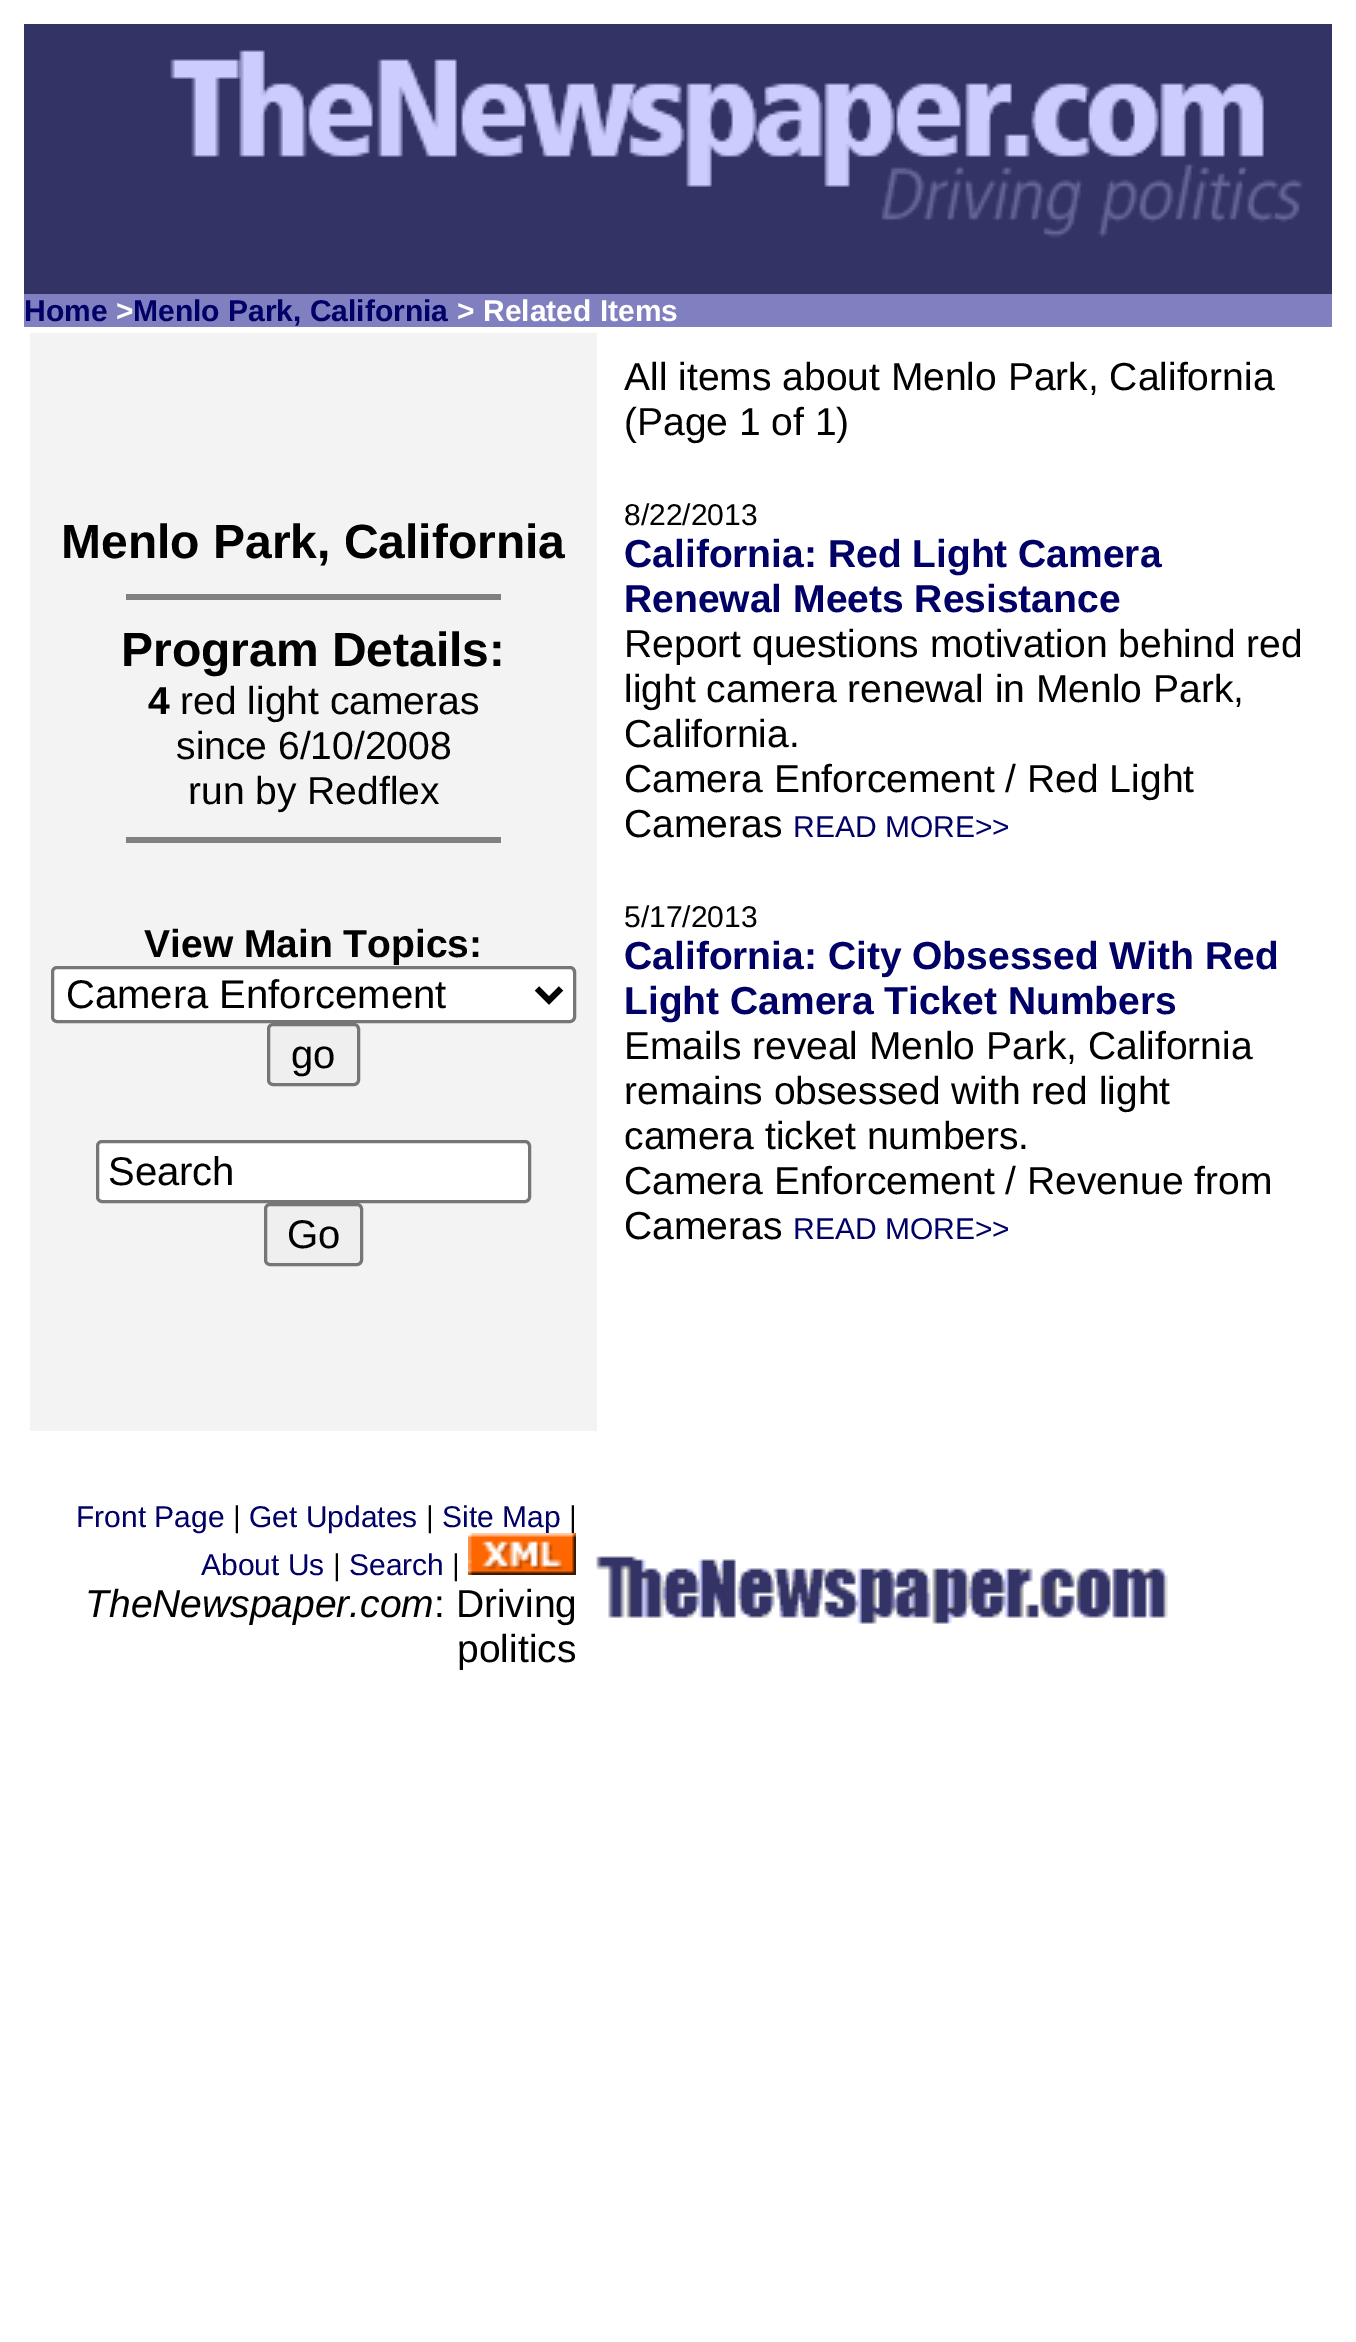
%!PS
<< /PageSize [1356 2342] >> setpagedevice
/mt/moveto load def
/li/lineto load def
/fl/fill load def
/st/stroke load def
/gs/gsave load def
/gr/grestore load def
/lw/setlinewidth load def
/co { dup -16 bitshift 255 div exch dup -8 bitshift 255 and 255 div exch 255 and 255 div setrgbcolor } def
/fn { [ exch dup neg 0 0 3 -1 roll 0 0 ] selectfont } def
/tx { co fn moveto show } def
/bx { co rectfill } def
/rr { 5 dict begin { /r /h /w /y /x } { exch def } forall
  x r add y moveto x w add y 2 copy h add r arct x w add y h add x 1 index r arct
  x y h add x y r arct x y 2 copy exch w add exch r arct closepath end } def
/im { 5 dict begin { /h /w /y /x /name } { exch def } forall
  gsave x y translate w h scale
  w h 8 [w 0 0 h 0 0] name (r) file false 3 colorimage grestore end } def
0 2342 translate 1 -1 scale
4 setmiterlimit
0 0 1356 2342 16#FFFFFF bx
24 24 1308 270 16#333366 bx
(media/1.raw) 170 50 1133 188 im
24 294 1308 33 16#8080C0 bx
30 333 567 1098 16#F3F3F3 bx
126 594 375 6 16#808080 bx
126 837 375 6 16#808080 bx
16#FFFFFF co
52.5 967.5 522 54 4.5 rr gs fl gr
16#767676 co
3 lw
st
16#000000 co
6 lw
537 988.5 mt 549 1000.5 li 561 988.5 li st
16#EFEFEF co
268.5 1024.5 90 60 4.5 rr gs fl gr
16#767676 co
3 lw
st
16#FFFFFF co
97.5 1141.5 432 60 4.5 rr gs fl gr
16#767676 co
st
16#EFEFEF co
265.5 1204.5 96 60 4.5 rr gs fl gr
16#767676 co
st
(media/3.raw) 596 1556 572 68 im
(Home) 24 321 /LiberationSans-Bold 30 16#000066 tx
(>) 116 321 /LiberationSans-Bold 30 16#FFFFFF tx
(Menlo Park, California) 133 321 /LiberationSans-Bold 30 16#000066 tx
(> Related Items) 457 321 /LiberationSans-Bold 30 16#FFFFFF tx
(Menlo Park, California) 61 558 /LiberationSans-Bold 48 16#000000 tx
(Program Details:) 121 666 /LiberationSans-Bold 48 16#000000 tx
(4) 148 714 /LiberationSans-Bold 39 16#000000 tx
(red light cameras) 180 714 /LiberationSans-Regular 39 16#000000 tx
(since 6/10/2008) 176 759 /LiberationSans-Regular 39 16#000000 tx
(run by Redflex) 188 804 /LiberationSans-Regular 39 16#000000 tx
(View Main Topics:) 144 957 /LiberationSans-Bold 39 16#000000 tx
(Camera Enforcement) 66 1008 /LiberationSans-Regular 40 16#000000 tx
(go) 291 1068 /LiberationSans-Regular 40 16#000000 tx
(Search) 108 1185 /LiberationSans-Regular 40 16#000000 tx
(Go) 287 1248 /LiberationSans-Regular 40 16#000000 tx
(All items about Menlo Park, California) 624 390 /LiberationSans-Regular 39 16#000000 tx
(\(Page 1 of 1\)) 624 435 /LiberationSans-Regular 39 16#000000 tx
(8/22/2013) 624 525 /LiberationSans-Regular 30 16#000000 tx
(California: Red Light Camera) 624 567 /LiberationSans-Bold 39 16#000066 tx
(Renewal Meets Resistance) 624 612 /LiberationSans-Bold 39 16#000066 tx
(Report questions motivation behind red) 624 657 /LiberationSans-Regular 39 16#000000 tx
(light camera renewal in Menlo Park,) 624 702 /LiberationSans-Regular 39 16#000000 tx
(California.) 624 747 /LiberationSans-Regular 39 16#000000 tx
(Camera Enforcement / Red Light) 624 792 /LiberationSans-Regular 39 16#000000 tx
(Cameras) 624 837 /LiberationSans-Regular 39 16#000000 tx
(READ MORE>>) 793 837 /LiberationSans-Regular 30 16#000066 tx
(5/17/2013) 624 927 /LiberationSans-Regular 30 16#000000 tx
(California: City Obsessed With Red) 624 969 /LiberationSans-Bold 39 16#000066 tx
(Light Camera Ticket Numbers) 624 1014 /LiberationSans-Bold 39 16#000066 tx
(Emails reveal Menlo Park, California) 624 1059 /LiberationSans-Regular 39 16#000000 tx
(remains obsessed with red light) 624 1104 /LiberationSans-Regular 39 16#000000 tx
(camera ticket numbers.) 624 1149 /LiberationSans-Regular 39 16#000000 tx
(Camera Enforcement / Revenue from) 624 1194 /LiberationSans-Regular 39 16#000000 tx
(Cameras) 624 1239 /LiberationSans-Regular 39 16#000000 tx
(READ MORE>>) 793 1239 /LiberationSans-Regular 30 16#000066 tx
(Front Page) 76 1527 /LiberationSans-Regular 30 16#000066 tx
(|) 233 1527 /LiberationSans-Regular 30 16#000000 tx
(Get Updates) 249 1527 /LiberationSans-Regular 30 16#000066 tx
(|) 426 1527 /LiberationSans-Regular 30 16#000000 tx
(Site Map) 442 1527 /LiberationSans-Regular 30 16#000066 tx
(|) 569 1527 /LiberationSans-Regular 30 16#000000 tx
(About Us) 201 1575 /LiberationSans-Regular 30 16#000066 tx
(|) 333 1575 /LiberationSans-Regular 30 16#000000 tx
(Search) 349 1575 /LiberationSans-Regular 30 16#000066 tx
(|) 452 1575 /LiberationSans-Regular 30 16#000000 tx
(media/2.raw) 468 1533 108 42 im
(TheNewspaper.com) 85 1617 /LiberationSans-Italic 39 16#000000 tx
(: Driving) 434 1617 /LiberationSans-Regular 39 16#000000 tx
(politics) 457 1662 /LiberationSans-Regular 39 16#000000 tx
showpage
